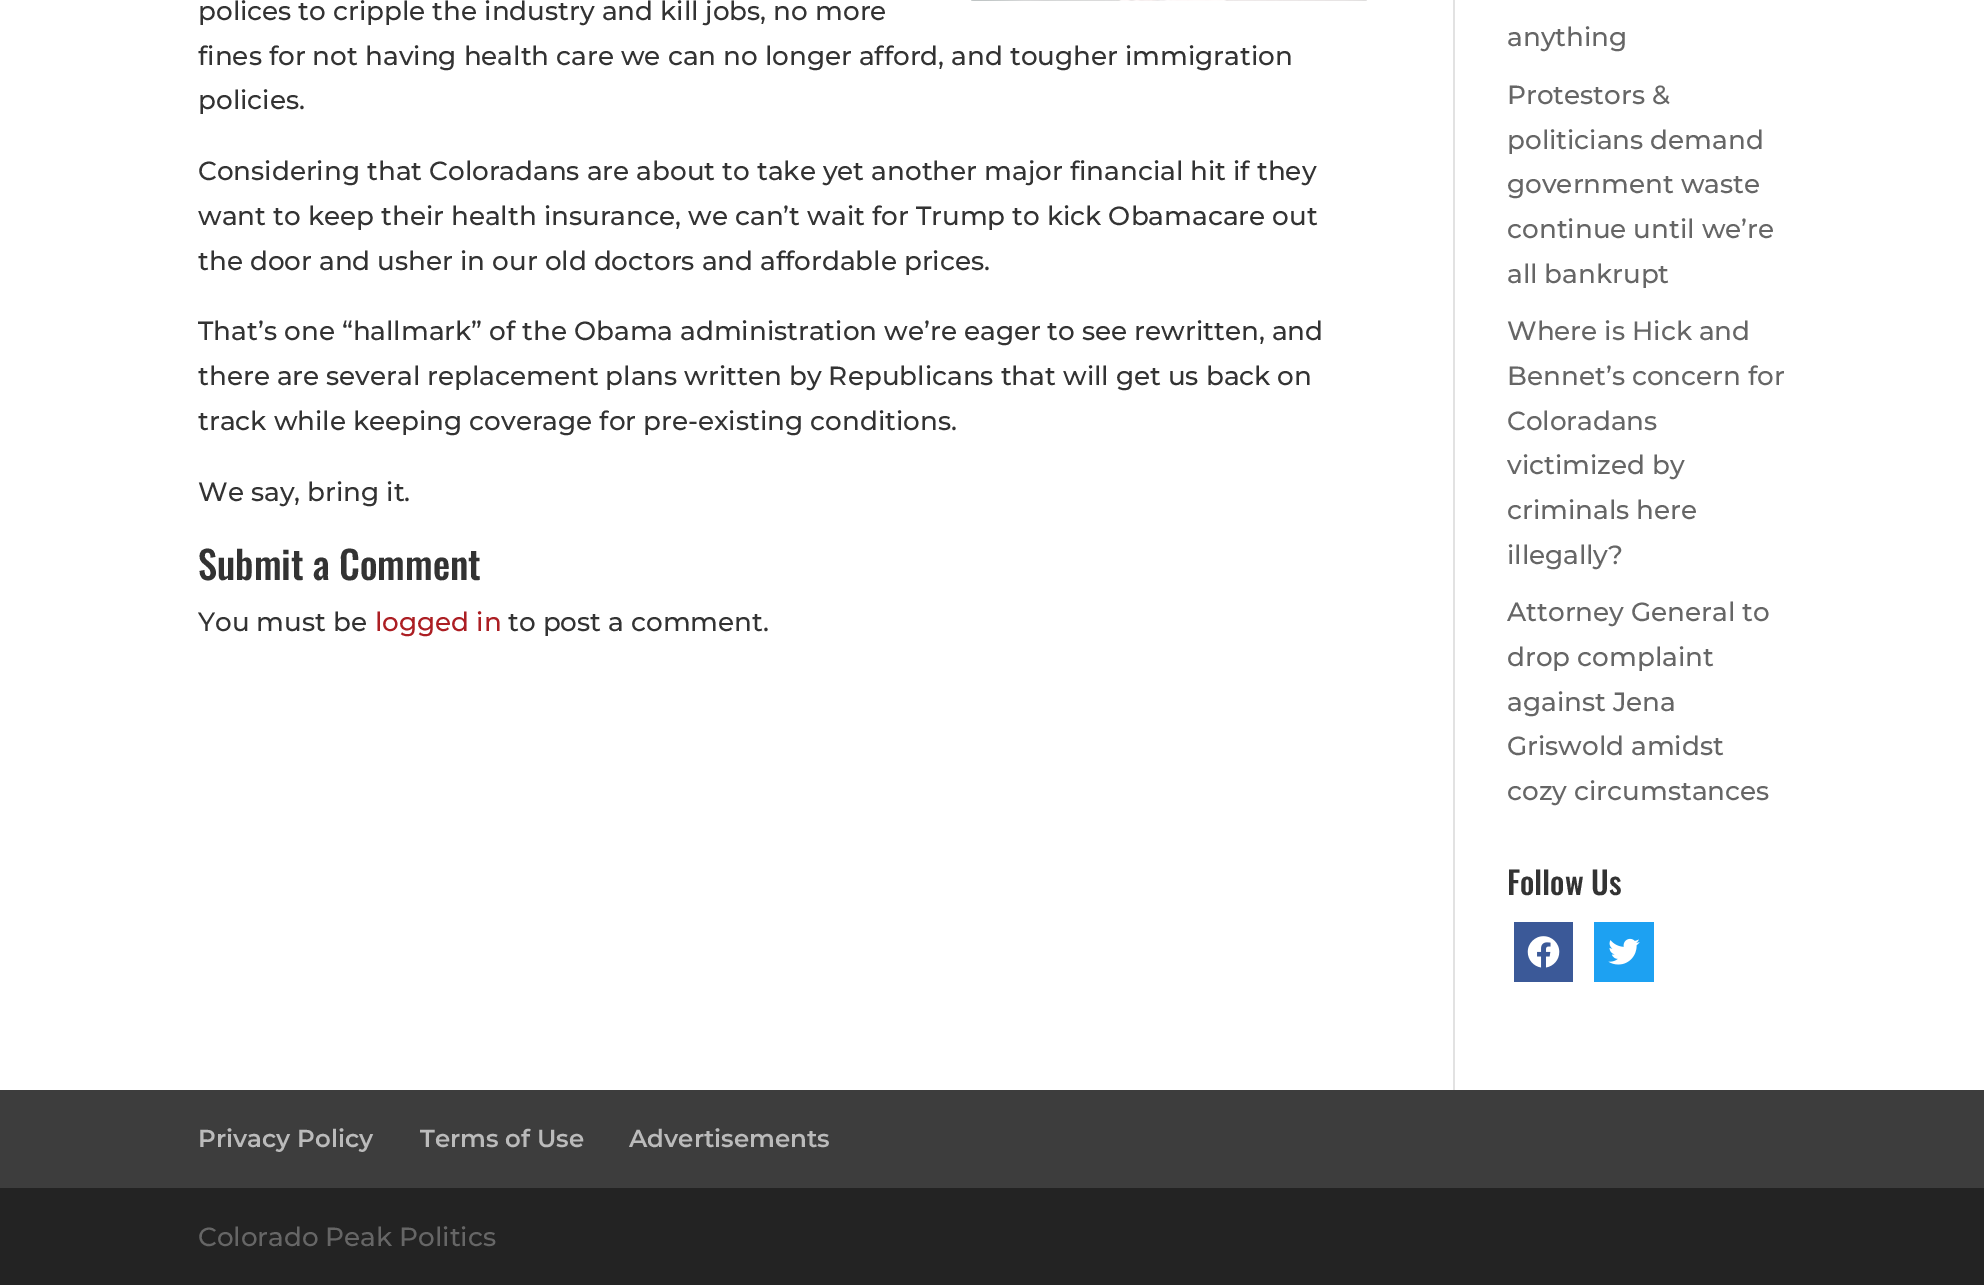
%!PS
<< /PageSize [1984 1285] >> setpagedevice
/co { dup -16 bitshift 255 div exch dup -8 bitshift 255 and 255 div exch 255 and 255 div setrgbcolor } def
/fn { [ exch dup neg 0 0 3 -1 roll 0 0 ] selectfont } def
/tx { co fn moveto show } def
/bx { co rectfill } def
/im { 5 dict begin { /h /w /y /x /name } { exch def } forall
  gsave x y translate w h scale
  w h 8 [w 0 0 h 0 0] name (r) file false 3 colorimage grestore end } def
0 1285 translate 1 -1 scale
4 setmiterlimit
0 0 1984 1285 16#FFFFFF bx
(media/1.raw) 971 0 396 1 im
1514 922 59 60 16#3B5998 bx
(media/2.raw) 1527 936 33 32 im
1594 922 60 60 16#1DA1F2 bx
(media/3.raw) 1608 938 32 27 im
1453 0 2 1090 16#E2E2E2 bx
0 1090 1984 98 16#3D3D3D bx
0 1188 1984 97 16#232323 bx
(polices to cripple the industry and kill jobs, no more) 198 20 /Montserrat-Thin 26.25 16#333333 tx
(fines for not having health care we can no longer afford, and tougher immigration) 198 65 /Montserrat-Thin 26.25 16#333333 tx
(policies.) 198 109 /Montserrat-Thin 26.25 16#333333 tx
(Considering that Coloradans are about to take yet another major financial hit if they) 198 180 /Montserrat-Thin 26.25 16#333333 tx
(want to keep their health insurance, we can’t wait for Trump to kick Obamacare out) 198 225 /Montserrat-Thin 26.25 16#333333 tx
(the door and usher in our old doctors and affordable prices.) 198 270 /Montserrat-Thin 26.25 16#333333 tx
(That’s one “hallmark” of the Obama administration we’re eager to see rewritten, and) 198 340 /Montserrat-Thin 26.25 16#333333 tx
(there are several replacement plans written by Republicans that will get us back on) 198 385 /Montserrat-Thin 26.25 16#333333 tx
(track while keeping coverage for pre-existing conditions.) 198 430 /Montserrat-Thin 26.25 16#333333 tx
(We say, bring it.) 198 501 /Montserrat-Thin 26.25 16#333333 tx
(Submit a Comment) 198 580 /Oswald-Medium 38.5 16#333333 tx
(You must be) 198 631 /Montserrat-Thin 26.25 16#333333 tx
(logged in) 375 631 /Montserrat-Thin 26.25 16#AC1E23 tx
(to post a comment.) 508 631 /Montserrat-Thin 26.25 16#333333 tx
(anything) 1507 46 /Montserrat-Thin 26.25 16#666666 tx
(Protestors &) 1507 104 /Montserrat-Thin 26.25 16#666666 tx
(politicians demand) 1507 149 /Montserrat-Thin 26.25 16#666666 tx
(government waste) 1507 193 /Montserrat-Thin 26.25 16#666666 tx
(continue until we’re) 1507 238 /Montserrat-Thin 26.25 16#666666 tx
(all bankrupt) 1507 283 /Montserrat-Thin 26.25 16#666666 tx
(Where is Hick and) 1507 340 /Montserrat-Thin 26.25 16#666666 tx
(Bennet’s concern for) 1507 385 /Montserrat-Thin 26.25 16#666666 tx
(Coloradans) 1507 430 /Montserrat-Thin 26.25 16#666666 tx
(victimized by) 1507 474 /Montserrat-Thin 26.25 16#666666 tx
(criminals here) 1507 519 /Montserrat-Thin 26.25 16#666666 tx
(illegally?) 1507 564 /Montserrat-Thin 26.25 16#666666 tx
(Attorney General to) 1507 621 /Montserrat-Thin 26.25 16#666666 tx
(drop complaint) 1507 666 /Montserrat-Thin 26.25 16#666666 tx
(against Jena) 1507 711 /Montserrat-Thin 26.25 16#666666 tx
(Griswold amidst) 1507 755 /Montserrat-Thin 26.25 16#666666 tx
(cozy circumstances) 1507 800 /Montserrat-Thin 26.25 16#666666 tx
(Follow Us) 1507 895 /Oswald-Medium 31.5 16#333333 tx
(Privacy Policy) 198 1147 /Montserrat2-Thin 24.5 16#BBBBBB tx
(Terms of Use) 420 1147 /Montserrat2-Thin 24.5 16#BBBBBB tx
(Advertisements) 629 1147 /Montserrat2-Thin 24.5 16#BBBBBB tx
(Colorado Peak Politics) 198 1246 /Montserrat-Thin 26.25 16#666666 tx
showpage
